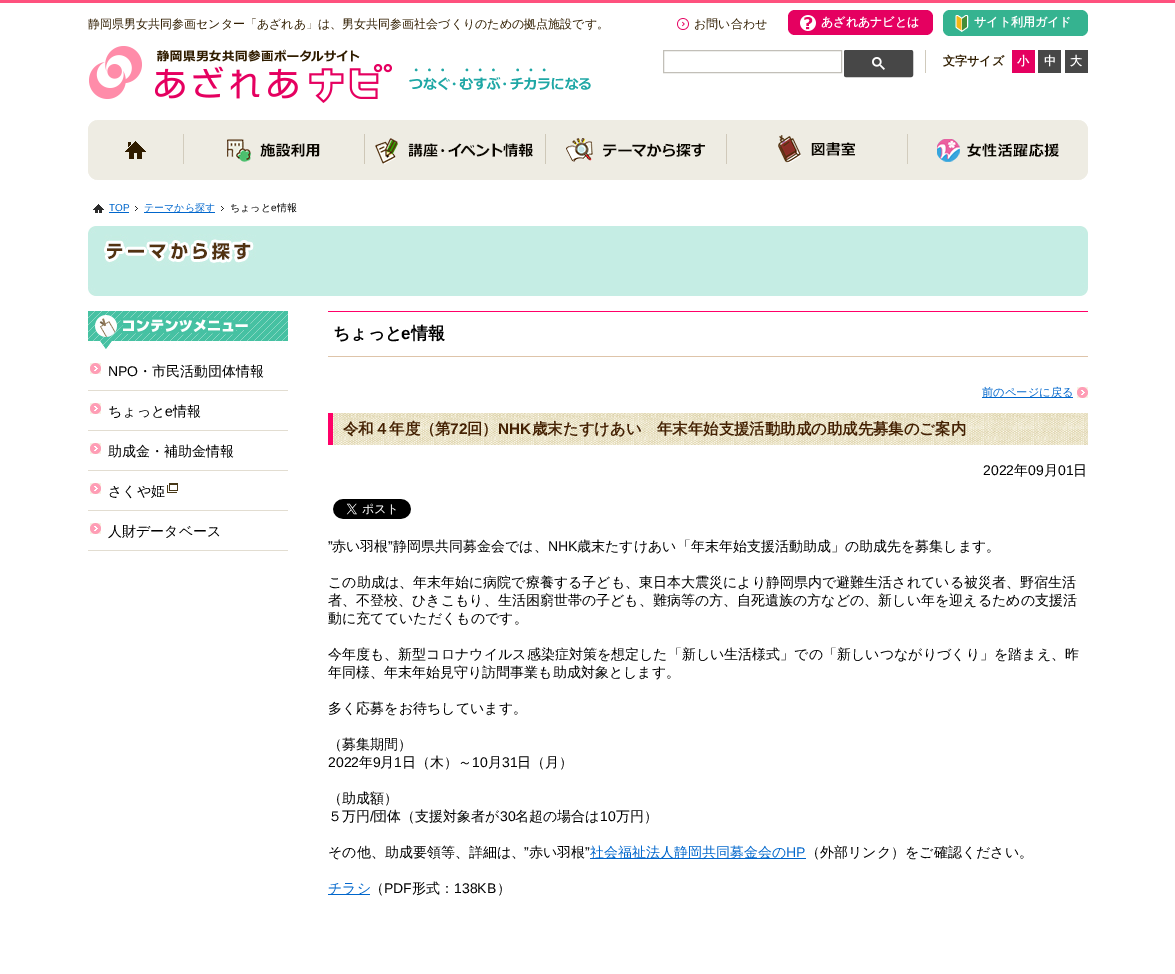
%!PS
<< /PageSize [1175 974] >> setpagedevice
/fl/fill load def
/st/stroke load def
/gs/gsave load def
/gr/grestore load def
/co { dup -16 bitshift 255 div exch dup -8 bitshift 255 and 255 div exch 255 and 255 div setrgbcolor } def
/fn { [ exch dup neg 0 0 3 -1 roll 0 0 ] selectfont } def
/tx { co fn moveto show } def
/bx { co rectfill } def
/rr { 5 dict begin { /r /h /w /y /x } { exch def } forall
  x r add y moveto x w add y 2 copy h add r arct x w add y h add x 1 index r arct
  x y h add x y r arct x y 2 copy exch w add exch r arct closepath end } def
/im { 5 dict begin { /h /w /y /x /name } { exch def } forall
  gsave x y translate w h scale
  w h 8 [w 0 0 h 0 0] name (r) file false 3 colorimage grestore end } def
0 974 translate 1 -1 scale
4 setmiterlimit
0 0 1175 974 16#FFFFFF bx
0 0 1175 3 16#FE517E bx
(media/1.raw) 677 18 12 12 im
16#E50060 co
788 10 145 25 7 rr fl
(media/2.raw) 800 15 16 16 im
16#35B390 co
943 10 145 26 7 rr fl
(media/3.raw) 955 15 14 17 im
(media/4.raw) 89 46 303 57 im
16#C2BFB8 co
663.5 50.5 178 22 rectstroke
16#474747 co
844.5 50.5 68 26 1.5 rr gs fl gr
st
(media/5.raw) 872 57 13 13 im
925 50 1 23 16#D0CABC bx
1012 50 23 23 16#E50060 bx
1038 50 23 23 16#474747 bx
1065 50 23 23 16#474747 bx
(media/6.raw) 409 68 182 23 im
(media/7.raw) 88 120 1000 60 im
(media/8.raw) 88 120 8 60 im
(media/9.raw) 1080 120 8 60 im
(media/10.raw) 93 204 11 9 im
109 212 20 1 16#0066CC bx
(media/11.raw) 135 206 3 5 im
144 212 71 1 16#0066CC bx
(media/11.raw) 221 206 3 5 im
(media/12.raw) 88 226 1000 70 im
(media/13.raw) 88 311 200 38 im
88 390 200 1 16#E2DDD1 bx
(media/14.raw) 90 363 11 11 im
88 430 200 1 16#E2DDD1 bx
(media/14.raw) 90 403 11 11 im
88 470 200 1 16#E2DDD1 bx
(media/14.raw) 90 443 11 11 im
88 510 200 1 16#E2DDD1 bx
(media/14.raw) 90 483 11 11 im
(media/15.raw) 167 483 11 10 im
88 550 200 1 16#E2DDD1 bx
(media/14.raw) 90 523 11 11 im
328 311 760 1 16#FF0068 bx
328 356 760 1 16#DEC4A9 bx
982 397 91 1 16#0066CC bx
(media/14.raw) 1077 387 11 11 im
(media/16.raw) 333 413 755 32 im
328 413 5 32 16#FF0068 bx
(media/17.raw) 333 499 78 20 im
590 858 216 1 16#0066CC bx
328 894 42 1 16#0066CC bx
(静岡県男女共同参画センター「あざれあ」は、男女共同参画社会づくりのための拠点施設です。) 88 28 /WenQuanYiZenHei-Medium 12 16#301D00 tx
(お問い合わせ) 694 28 /WenQuanYiZenHei-Medium 12 16#301D00 tx
(あざれあナビとは) 821 26 /WenQuanYiZenHei-Bold 12 16#FFFFFF tx
(サイト利用ガイド) 974 26 /WenQuanYiZenHei-Bold 12 16#FFFFFF tx
(文字サイズ) 943 65 /WenQuanYiZenHei-Bold 12 16#301D00 tx
(小) 1017 65 /WenQuanYiZenHei-Bold 12 16#FFFFFF tx
(中) 1044 65 /WenQuanYiZenHei-Bold 12 16#FFFFFF tx
(大) 1070 65 /WenQuanYiZenHei-Bold 12 16#FFFFFF tx
(TOP) 109 211 /LiberationSans-Regular 10 16#0066CC tx
(テーマから探す) 144 211 /WenQuanYiZenHei-Medium 10 16#0066CC tx
(ちょっと) 230 211 /WenQuanYiZenHei-Medium 10 16#000000 tx
(e) 271 211 /LiberationSans-Regular 10 16#000000 tx
(情報) 277 211 /WenQuanYiZenHei-Medium 10 16#000000 tx
(NPO) 108 376 /LiberationSans-Regular 14 16#000000 tx
(・市民活動団体情報) 138 376 /WenQuanYiZenHei-Medium 14 16#000000 tx
(ちょっと) 108 416 /WenQuanYiZenHei-Medium 14 16#000000 tx
(e) 165 416 /LiberationSans-Regular 14 16#000000 tx
(情報) 173 416 /WenQuanYiZenHei-Medium 14 16#000000 tx
(助成金・補助金情報) 108 456 /WenQuanYiZenHei-Medium 14 16#000000 tx
(さくや姫) 108 496 /WenQuanYiZenHei-Medium 14 16#000000 tx
(人財データベース) 108 536 /WenQuanYiZenHei-Medium 14 16#000000 tx
(ちょっと) 333 339 /WenQuanYiZenHei-Bold 17 16#000000 tx
(e) 401 339 /LiberationSans-Bold 17 16#000000 tx
(情報) 411 339 /WenQuanYiZenHei-Bold 17 16#000000 tx
(前のページに戻る) 982 396 /WenQuanYiZenHei-Medium 11.25 16#0066CC tx
(令和４年度（第) 343 434 /WenQuanYiZenHei-Bold 15.4 16#442103 tx
(72) 450 434 /LiberationSans-Bold 15.4 16#442103 tx
(回）) 467 434 /WenQuanYiZenHei-Bold 15.4 16#442103 tx
(NHK) 498 434 /LiberationSans-Bold 15.4 16#442103 tx
(歳末たすけあい　年末年始支援活動助成の助成先募集のご案内) 532 434 /WenQuanYiZenHei-Bold 15.4 16#442103 tx
(2022) 983 475 /LiberationSans-Regular 14 16#000000 tx
(年) 1014 475 /WenQuanYiZenHei-Medium 14 16#000000 tx
(09) 1028 475 /LiberationSans-Regular 14 16#000000 tx
(月) 1044 475 /WenQuanYiZenHei-Medium 14 16#000000 tx
(01) 1058 475 /LiberationSans-Regular 14 16#000000 tx
(日) 1073 475 /WenQuanYiZenHei-Medium 14 16#000000 tx
(”) 328 551 /LiberationSans-Regular 14 16#000000 tx
(赤い羽根) 332 551 /WenQuanYiZenHei-Medium 14 16#000000 tx
(”) 388 551 /LiberationSans-Regular 14 16#000000 tx
(静岡県共同募金会では、) 393 551 /WenQuanYiZenHei-Medium 14 16#000000 tx
(NHK) 548 551 /LiberationSans-Regular 14 16#000000 tx
(歳末たすけあい「年末年始支援活動助成」の助成先を募集します。) 577 551 /WenQuanYiZenHei-Medium 14 16#000000 tx
(この助成は、年末年始に病院で療養する子ども、東日本大震災により静岡県内で避難生活されている被災者、野宿生活) 328 587 /WenQuanYiZenHei-Medium 14 16#000000 tx
(者、不登校、ひきこもり、生活困窮世帯の子ども、難病等の方、自死遺族の方などの、新しい年を迎えるための支援活) 328 605 /WenQuanYiZenHei-Medium 14 16#000000 tx
(動に充てていただくものです。) 328 623 /WenQuanYiZenHei-Medium 14 16#000000 tx
(今年度も、新型コロナウイルス感染症対策を想定した「新しい生活様式」での「新しいつながりづくり」を踏まえ、昨) 328 659 /WenQuanYiZenHei-Medium 14 16#000000 tx
(年同様、年末年始見守り訪問事業も助成対象とします。) 328 677 /WenQuanYiZenHei-Medium 14 16#000000 tx
(多く応募をお待ちしています。) 328 713 /WenQuanYiZenHei-Medium 14 16#000000 tx
(（募集期間）) 328 749 /WenQuanYiZenHei-Medium 14 16#000000 tx
(2022) 328 767 /LiberationSans-Regular 14 16#000000 tx
(年) 359 767 /WenQuanYiZenHei-Medium 14 16#000000 tx
(9) 373 767 /LiberationSans-Regular 14 16#000000 tx
(月) 380 767 /WenQuanYiZenHei-Medium 14 16#000000 tx
(1) 394 767 /LiberationSans-Regular 14 16#000000 tx
(日（木）～) 402 767 /WenQuanYiZenHei-Medium 14 16#000000 tx
(10) 472 767 /LiberationSans-Regular 14 16#000000 tx
(月) 488 767 /WenQuanYiZenHei-Medium 14 16#000000 tx
(31) 502 767 /LiberationSans-Regular 14 16#000000 tx
(日（月）) 517 767 /WenQuanYiZenHei-Medium 14 16#000000 tx
(（助成額）) 328 803 /WenQuanYiZenHei-Medium 14 16#000000 tx
(５万円) 328 821 /WenQuanYiZenHei-Medium 14 16#000000 tx
(/) 370 821 /LiberationSans-Regular 14 16#000000 tx
(団体（支援対象者が) 373 821 /WenQuanYiZenHei-Medium 14 16#000000 tx
(30) 500 821 /LiberationSans-Regular 14 16#000000 tx
(名超の場合は) 515 821 /WenQuanYiZenHei-Medium 14 16#000000 tx
(10) 600 821 /LiberationSans-Regular 14 16#000000 tx
(万円）) 616 821 /WenQuanYiZenHei-Medium 14 16#000000 tx
(その他、助成要領等、詳細は、) 328 857 /WenQuanYiZenHei-Medium 14 16#000000 tx
(”) 524 857 /LiberationSans-Regular 14 16#000000 tx
(赤い羽根) 529 857 /WenQuanYiZenHei-Medium 14 16#000000 tx
(”) 585 857 /LiberationSans-Regular 14 16#000000 tx
(社会福祉法人静岡共同募金会の) 590 857 /WenQuanYiZenHei-Medium 14 16#0066CC tx
(HP) 786 857 /LiberationSans-Regular 14 16#0066CC tx
(（外部リンク）をご確認ください。) 806 857 /WenQuanYiZenHei-Medium 14 16#000000 tx
(チラシ) 328 893 /WenQuanYiZenHei-Medium 14 16#0066CC tx
(（) 370 893 /WenQuanYiZenHei-Medium 14 16#000000 tx
(PDF) 384 893 /LiberationSans-Regular 14 16#000000 tx
(形式：) 412 893 /WenQuanYiZenHei-Medium 14 16#000000 tx
(138KB) 454 893 /LiberationSans-Regular 14 16#000000 tx
(）) 497 893 /WenQuanYiZenHei-Medium 14 16#000000 tx
showpage
